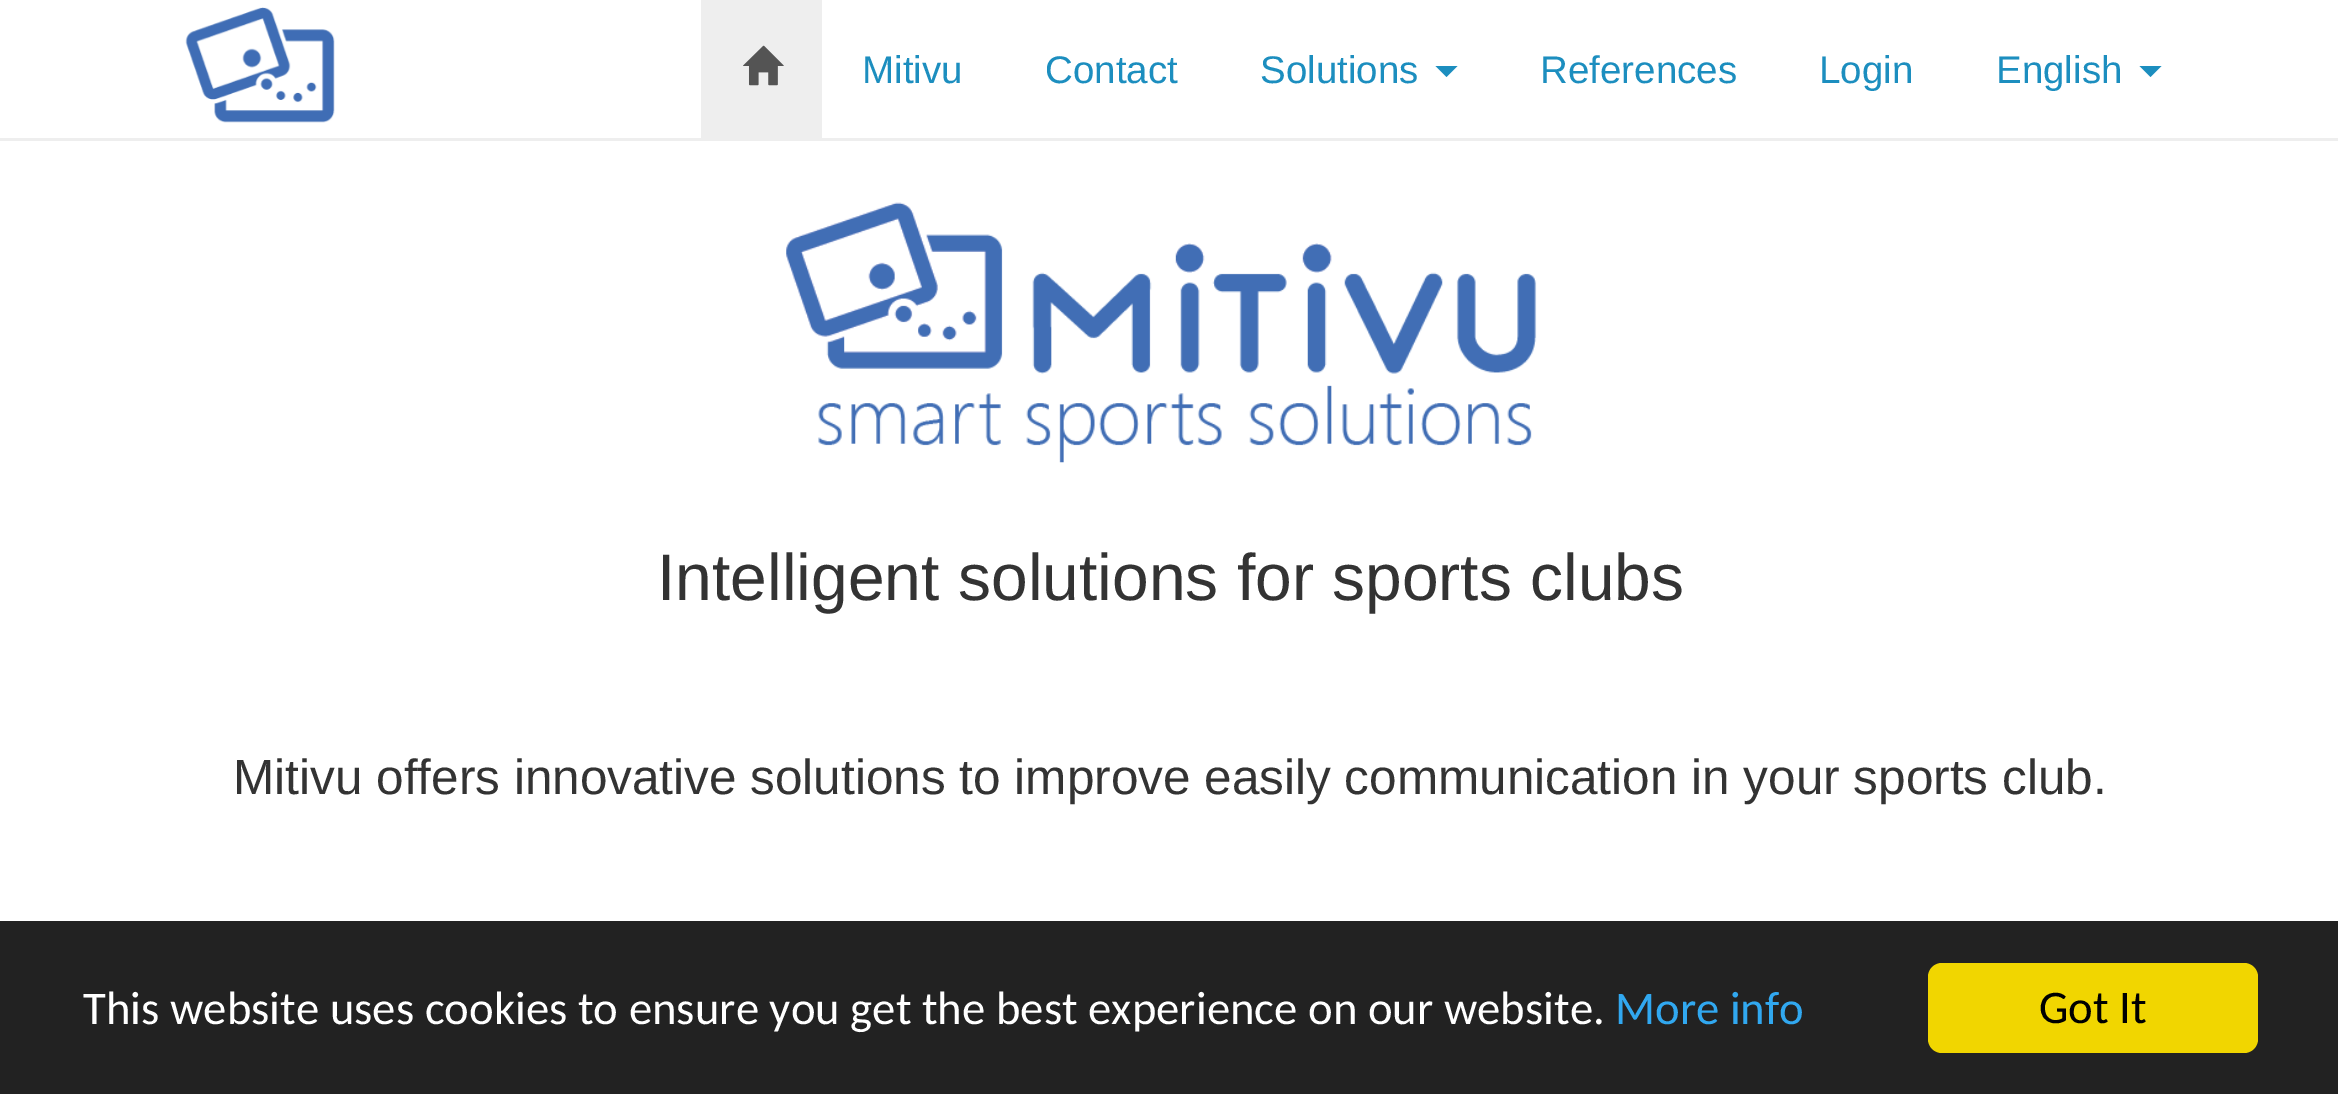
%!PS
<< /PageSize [2338 1094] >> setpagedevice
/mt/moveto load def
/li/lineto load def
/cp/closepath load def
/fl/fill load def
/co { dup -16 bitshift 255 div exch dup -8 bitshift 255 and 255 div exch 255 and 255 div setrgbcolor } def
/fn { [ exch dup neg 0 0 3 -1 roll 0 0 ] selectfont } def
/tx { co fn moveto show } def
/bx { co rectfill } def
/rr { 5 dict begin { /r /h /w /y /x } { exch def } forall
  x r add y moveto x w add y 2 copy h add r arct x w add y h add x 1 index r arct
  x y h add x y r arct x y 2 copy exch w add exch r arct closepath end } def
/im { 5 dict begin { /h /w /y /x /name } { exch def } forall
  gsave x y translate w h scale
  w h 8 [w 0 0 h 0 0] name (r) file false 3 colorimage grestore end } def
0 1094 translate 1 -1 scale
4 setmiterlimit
0 0 2338 1094 16#FFFFFF bx
0 138 2338 3 16#EEEEEE bx
(media/1.raw) 185 7 150 116 im
701 0 121 138 16#EEEEEE bx
(media/2.raw) 743 45 41 41 im
16#1C8EBF co
1435.5 66 mt 1457.5 66 li 1446.5 77 li cp fl
2139.5 66 mt 2161.5 66 li 2150.5 77 li cp fl
(media/3.raw) 786 202 751 261 im
0 921 2338 173 16#222222 bx
16#F1D600 co
1928 963 330 90 14 rr fl
(Mitivu) 862 83 /LiberationSans-Regular 38.5 16#1C8EBF tx
(Contact) 1045 83 /LiberationSans-Regular 38.5 16#1C8EBF tx
(Solutions) 1260 83 /LiberationSans-Regular 38.5 16#1C8EBF tx
(References) 1540 83 /LiberationSans-Regular 38.5 16#1C8EBF tx
(Login) 1819 83 /LiberationSans-Regular 38.5 16#1C8EBF tx
(English) 1996 83 /LiberationSans-Regular 38.5 16#1C8EBF tx
(Intelligent solutions for sports clubs) 657 600 /LiberationSans-Regular 66 16#333333 tx
(Mitivu offers innovative solutions to improve easily communication in your sports club.) 233 794 /LiberationSans-Regular 49.5 16#333333 tx
(This website uses cookies to ensure you get the best experience on our website.) 83 1024 /Carlito-Regular 46.75 16#FFFFFF tx
(More info) 1615 1024 /Carlito-Regular 46.75 16#31A8F0 tx
(Got It) 2039 1023 /Carlito-Regular 46.75 16#000000 tx
showpage
